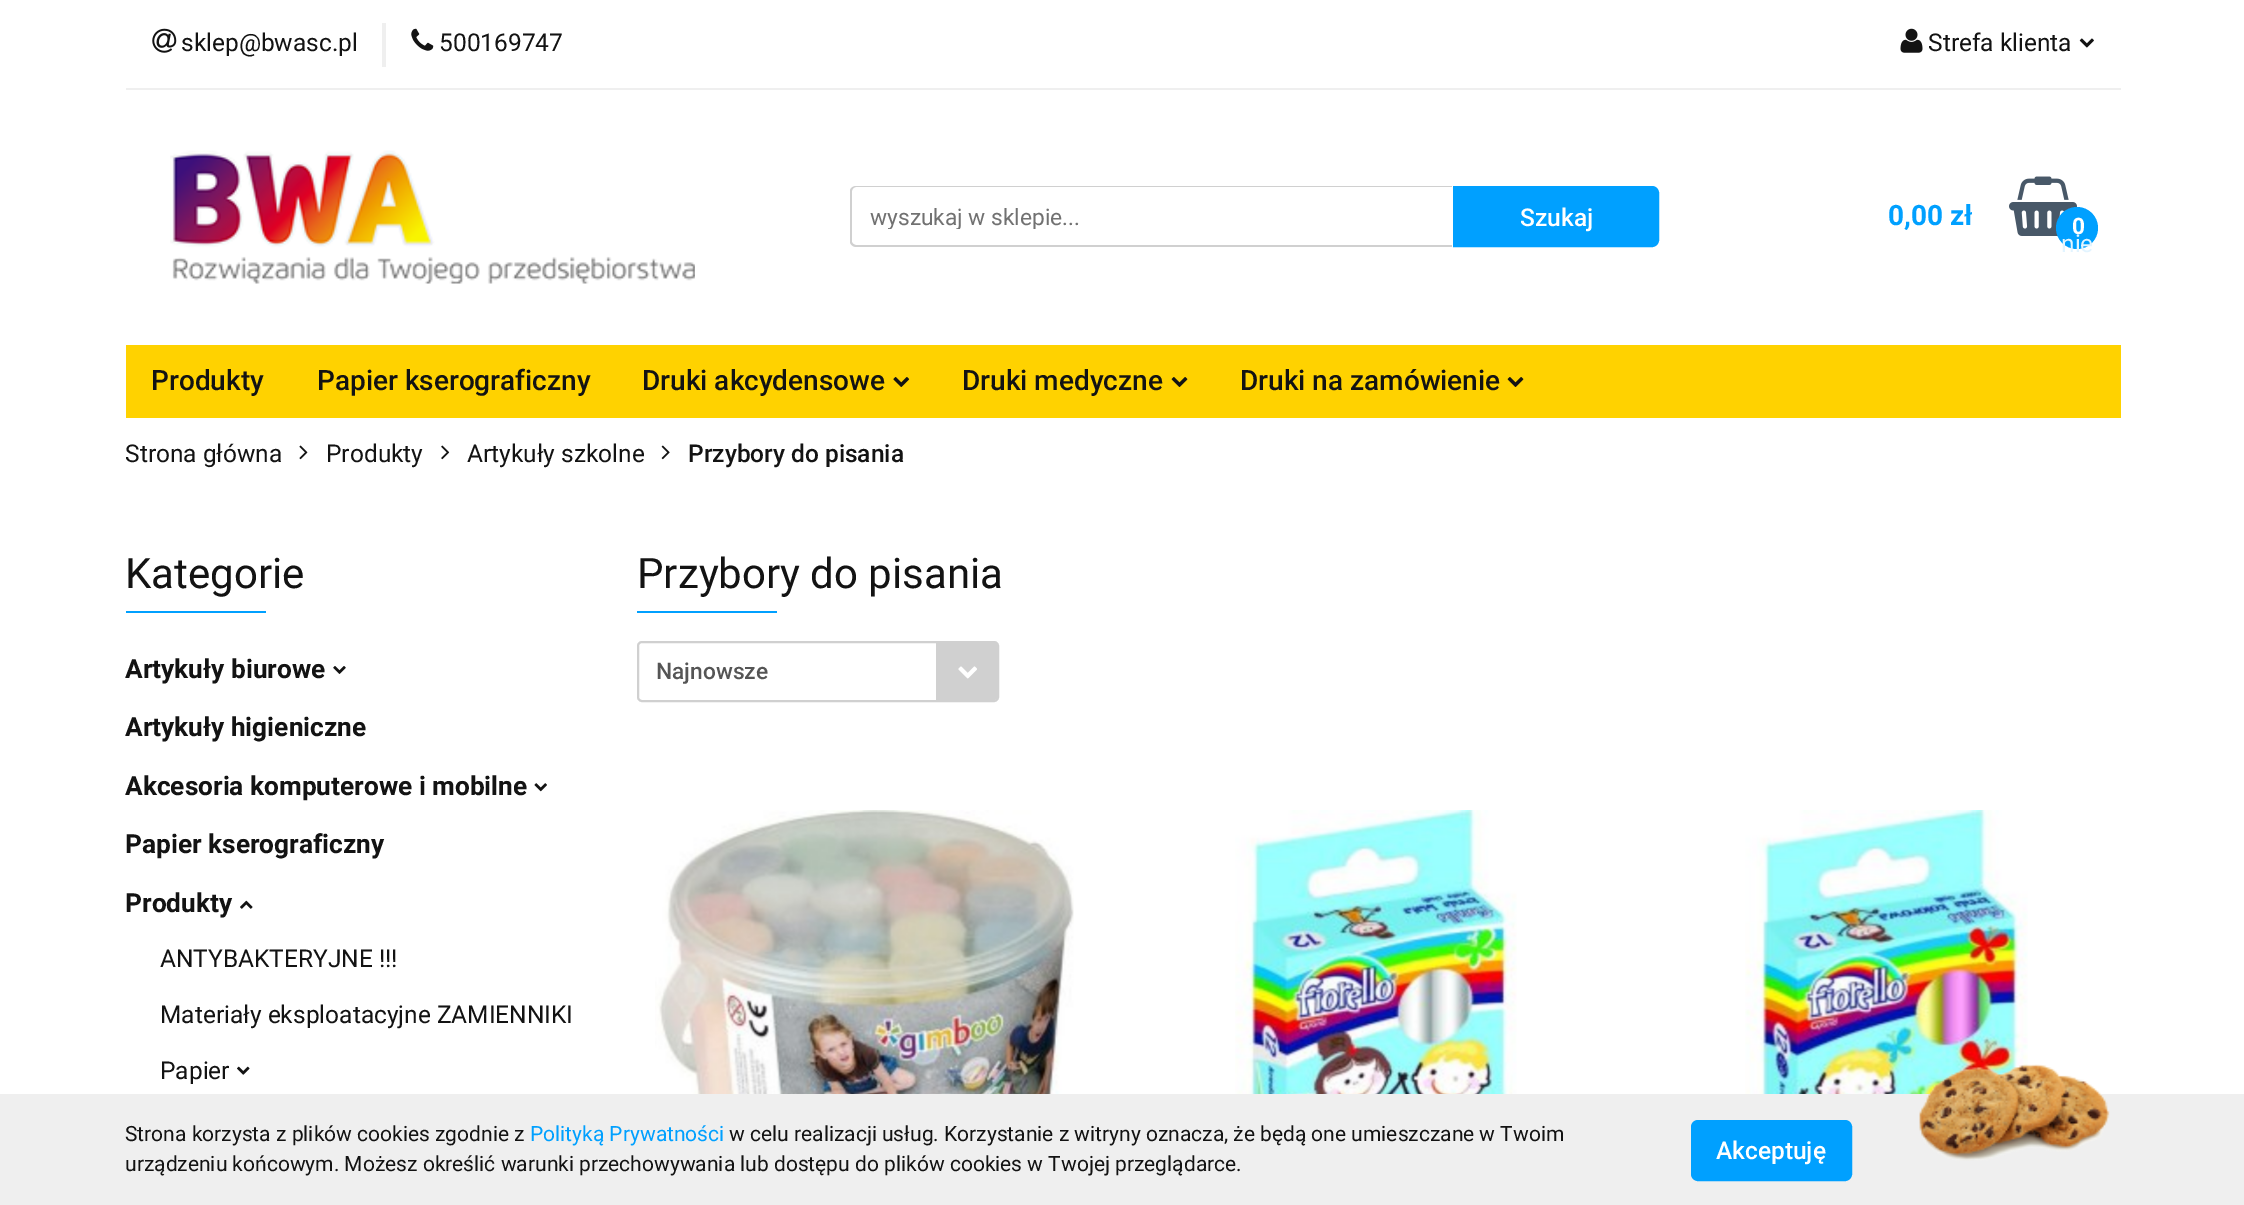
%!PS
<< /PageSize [2244 1205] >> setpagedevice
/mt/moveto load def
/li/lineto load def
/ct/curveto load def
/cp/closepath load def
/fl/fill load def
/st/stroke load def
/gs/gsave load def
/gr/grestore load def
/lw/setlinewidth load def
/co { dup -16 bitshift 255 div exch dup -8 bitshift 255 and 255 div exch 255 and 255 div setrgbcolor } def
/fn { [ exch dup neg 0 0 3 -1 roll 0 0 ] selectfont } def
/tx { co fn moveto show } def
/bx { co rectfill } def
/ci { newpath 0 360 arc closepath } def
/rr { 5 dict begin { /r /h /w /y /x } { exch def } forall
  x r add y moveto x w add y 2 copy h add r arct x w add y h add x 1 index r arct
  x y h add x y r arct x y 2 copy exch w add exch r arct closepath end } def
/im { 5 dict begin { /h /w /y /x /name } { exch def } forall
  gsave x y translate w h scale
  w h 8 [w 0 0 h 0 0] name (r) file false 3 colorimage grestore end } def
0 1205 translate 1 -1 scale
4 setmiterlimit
0 0 2244 1205 16#FFFFFF bx
126 88 1995 2 16#EFEFEF bx
(media/1.raw) 152 28 25 25 im
382 23 4 44 16#EFEFEF bx
(media/2.raw) 411 28 23 23 im
(media/3.raw) 1900 28 23 25 im
(media/4.raw) 2079 38 15 10 im
(media/5.raw) 170 150 525 134 im
16#D0D0D0 co
856 186 mt 1452 186 li 1452 247 li 856 247 li 853 247 850 244 850 242 ct 850 191 li 850 188 853 186 856 186 ct cp 856 187 mt 1452 187 li 1452 245 li 856 245 li 854 245 852 243 852 242 ct 852 191 li 852 189 854 187 856 187 ct cp eofill
16#00A0FF co
1455.5 188.5 mt 1652 188.5 li 1654.5 188.5 1656.5 190.5 1656.5 193 ct 1656.5 240 li 1656.5 242.5 1654.5 244.5 1652 244.5 ct 1455.5 244.5 li cp gs fl gr
5 lw
st
(media/6.raw) 2009 176 68 60 im
2077 228 21 ci fl
126 345 1995 73 16#FFD200 bx
(media/7.raw) 893 377 17 10 im
(media/8.raw) 1171 377 17 10 im
(media/8.raw) 1507 377 17 10 im
(media/9.raw) 299 445 9 15 im
(media/10.raw) 441 445 9 15 im
(media/11.raw) 661 445 9 15 im
126 611 140 2 16#00A0FF bx
(media/12.raw) 333 666 13 8 im
(media/13.raw) 534 783 13 9 im
(media/14.raw) 240 900 13 9 im
(media/15.raw) 237 1066 13 9 im
637 611 140 2 16#00A0FF bx
16#D0D0D0 co
2 lw
638 642 360 59 4 rr st
936 642 mt 994 642 li 996 642 998 644 998 646 ct 998 696 li 998 698 996 700 994 700 ct 936 700 li cp fl
(media/16.raw) 958 666 19 13 im
(media/17.raw) 655 810 419 284 im
(media/18.raw) 1235 810 282 284 im
(media/19.raw) 1745 810 283 284 im
0 1094 2244 111 16#EFEFEF bx
16#00A0FF co
1693.5 1122.5 156 56 4.5 rr gs fl gr
5 lw
st
(media/20.raw) 1919 1064 191 97 im
(sklep@bwasc.pl) 181 51 /Roboto-Regular 24.5 16#131313 tx
(500169747) 439 51 /Roboto-Regular 24.5 16#131313 tx
(Strefa klienta) 1928 51 /Roboto-Regular 24.5 16#131313 tx
(nie) 2061 252 /Roboto-Regular 24.5 16#E2F4FF tx
gs
870 203 565 26 rectclip
(wyszukaj w sklepie...) 870 225 /Roboto-Regular 22.75 16#717171 tx
gr
(Szukaj) 1520 226 /Roboto-Medium 24.5 16#FFFFFF tx
(0,00 zł) 1888 225 /Roboto-Bold 28 16#00A0FF tx
(0) 2072 234 /Roboto-Bold 22.75 16#FFFFFF tx
(Produkty) 151 390 /Roboto-Medium 28 16#131313 tx
(Papier kserograficzny) 317 390 /Roboto-Medium 28 16#131313 tx
(Druki akcydensowe) 642 390 /Roboto-Medium 28 16#131313 tx
(Druki medyczne) 962 390 /Roboto-Medium 28 16#131313 tx
(Druki na zamówienie) 1240 390 /Roboto-Medium 28 16#131313 tx
(Strona główna) 125 462 /Roboto-Regular 24.5 16#131313 tx
(Produkty) 326 462 /Roboto-Regular 24.5 16#131313 tx
(Artykuły szkolne) 467 462 /Roboto-Regular 24.5 16#131313 tx
(Przybory do pisania) 688 462 /Roboto-Medium 24.5 16#131313 tx
(Kategorie) 125 588 /Roboto-Regular 42 16#131313 tx
(Artykuły biurowe) 125 678 /Roboto-Bold 26.25 16#131313 tx
(Artykuły higieniczne) 125 736 /Roboto-Bold 26.25 16#131313 tx
(Akcesoria komputerowe i mobilne) 125 795 /Roboto-Bold 26.25 16#131313 tx
(Papier kserograficzny) 125 853 /Roboto-Bold 26.25 16#131313 tx
(Produkty) 125 912 /Roboto-Bold 26.25 16#131313 tx
(ANTYBAKTERYJNE !!!) 160 967 /Roboto-Regular 24.5 16#131313 tx
(Materiały eksploatacyjne ZAMIENNIKI) 160 1023 /Roboto-Regular 24.5 16#131313 tx
(Papier) 160 1079 /Roboto-Regular 24.5 16#131313 tx
(Przybory do pisania) 637 588 /Roboto-Regular 42 16#131313 tx
(Najnowsze) 656 679 /Roboto-Medium 22.75 16#555555 tx
(Strona korzysta z plików cookies zgodnie z) 125 1141 /Roboto-Regular 21 16#131313 tx
(Polityką Prywatności) 530 1141 /Roboto-Regular 21 16#00A0FF tx
(w celu realizacji usług. Korzystanie z witryny oznacza, że będą one umieszczane w Twoim) 729 1141 /Roboto-Regular 21 16#131313 tx
(urządzeniu końcowym. Możesz określić warunki przechowywania lub dostępu do plików cookies w Twojej przeglądarce.) 125 1171 /Roboto-Regular 21 16#131313 tx
(Akceptuję) 1716 1159 /Roboto-Medium 24.5 16#FFFFFF tx
showpage
